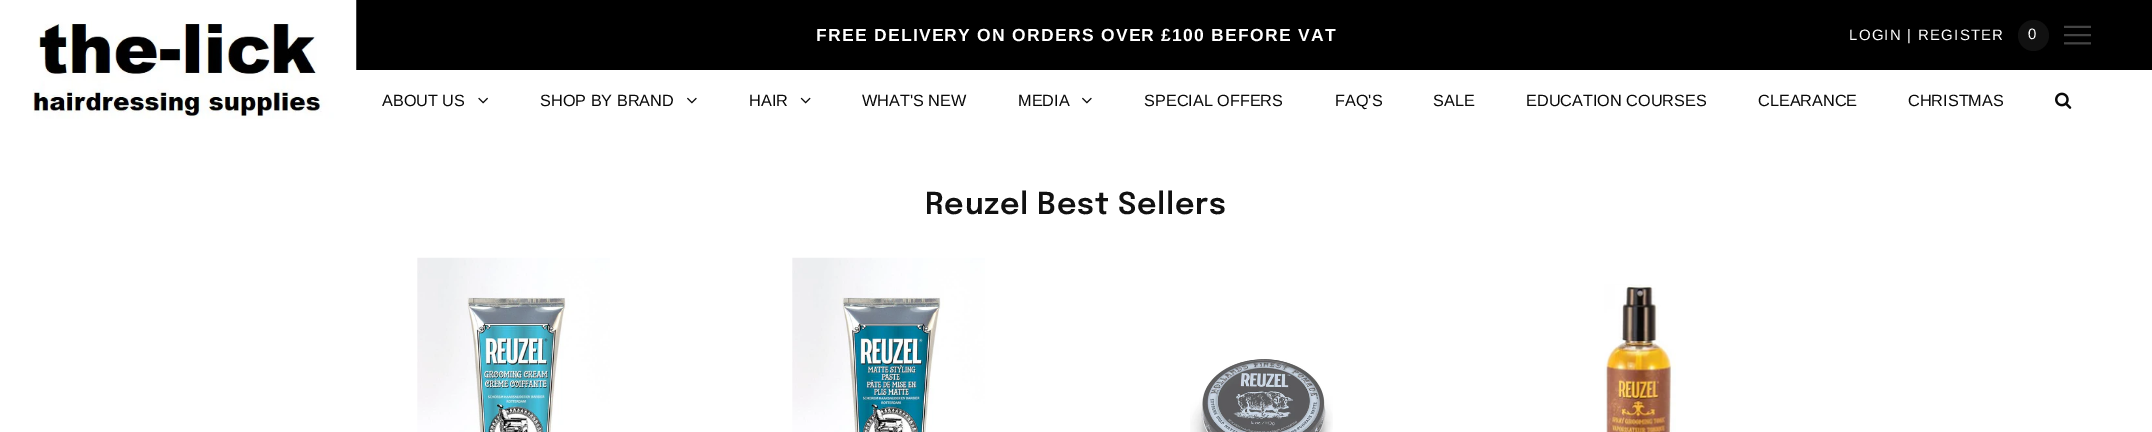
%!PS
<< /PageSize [2152 432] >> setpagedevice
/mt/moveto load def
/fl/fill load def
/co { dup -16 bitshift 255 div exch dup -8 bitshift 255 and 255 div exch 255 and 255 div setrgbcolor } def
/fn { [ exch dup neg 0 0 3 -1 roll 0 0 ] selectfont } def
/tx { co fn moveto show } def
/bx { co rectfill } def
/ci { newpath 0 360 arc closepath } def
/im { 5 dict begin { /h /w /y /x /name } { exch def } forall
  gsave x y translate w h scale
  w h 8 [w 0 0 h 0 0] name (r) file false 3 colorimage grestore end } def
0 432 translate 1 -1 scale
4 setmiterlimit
0 0 2152 432 16#FFFFFF bx
356 0 1796 70 16#000000 bx
16#111111 co
2033.5 35.5 15.5 ci fl
(media/1.raw) 2064 25 27 20 im
(media/2.raw) 0 0 357 119 im
(media/3.raw) 478 97 10 7 im
(media/4.raw) 687 97 10 7 im
(media/5.raw) 800 97 11 7 im
(media/4.raw) 1082 97 10 7 im
(media/6.raw) 2055 92 17 17 im
(media/7.raw) 417 257 193 175 im
(media/8.raw) 792 257 193 175 im
(media/9.raw) 1190 359 143 73 im
(media/10.raw) 1604 284 72 148 im
/Arimo-Regular 15 fn
16#FFFFFF co
1849 40 mt 1.25 0 (LOGIN | REGISTER) ashow
2028 39 mt 1.25 0 (0) ashow
(ABOUT US) 382 106 /LiberationSans-Regular 16.25 16#090909 tx
(SHOP BY BRAND) 540 106 /LiberationSans-Regular 16.25 16#090909 tx
(HAIR) 749 106 /LiberationSans-Regular 16.25 16#090909 tx
(WHAT'S NEW) 862 106 /LiberationSans-Regular 16.25 16#090909 tx
(MEDIA) 1018 106 /LiberationSans-Regular 16.25 16#090909 tx
(SPECIAL OFFERS) 1144 106 /LiberationSans-Regular 16.25 16#090909 tx
(FAQ'S) 1335 106 /LiberationSans-Regular 16.25 16#090909 tx
(SALE) 1433 106 /LiberationSans-Regular 16.25 16#090909 tx
(EDUCATION COURSES) 1526 106 /LiberationSans-Regular 16.25 16#090909 tx
(CLEARANCE) 1758 106 /LiberationSans-Regular 16.25 16#090909 tx
(CHRISTMAS) 1908 106 /LiberationSans-Regular 16.25 16#090909 tx
/Arimo-Bold 17.5 fn
16#FFFFFF co
816 41 mt 1.25 0 (FREE DELIVERY ON ORDERS OVER £100 BEFORE VAT) ashow
/Epilogue-SemiBold 30 fn
16#111111 co
925 214 mt .75 0 (Reuzel Best Sellers) ashow
showpage
